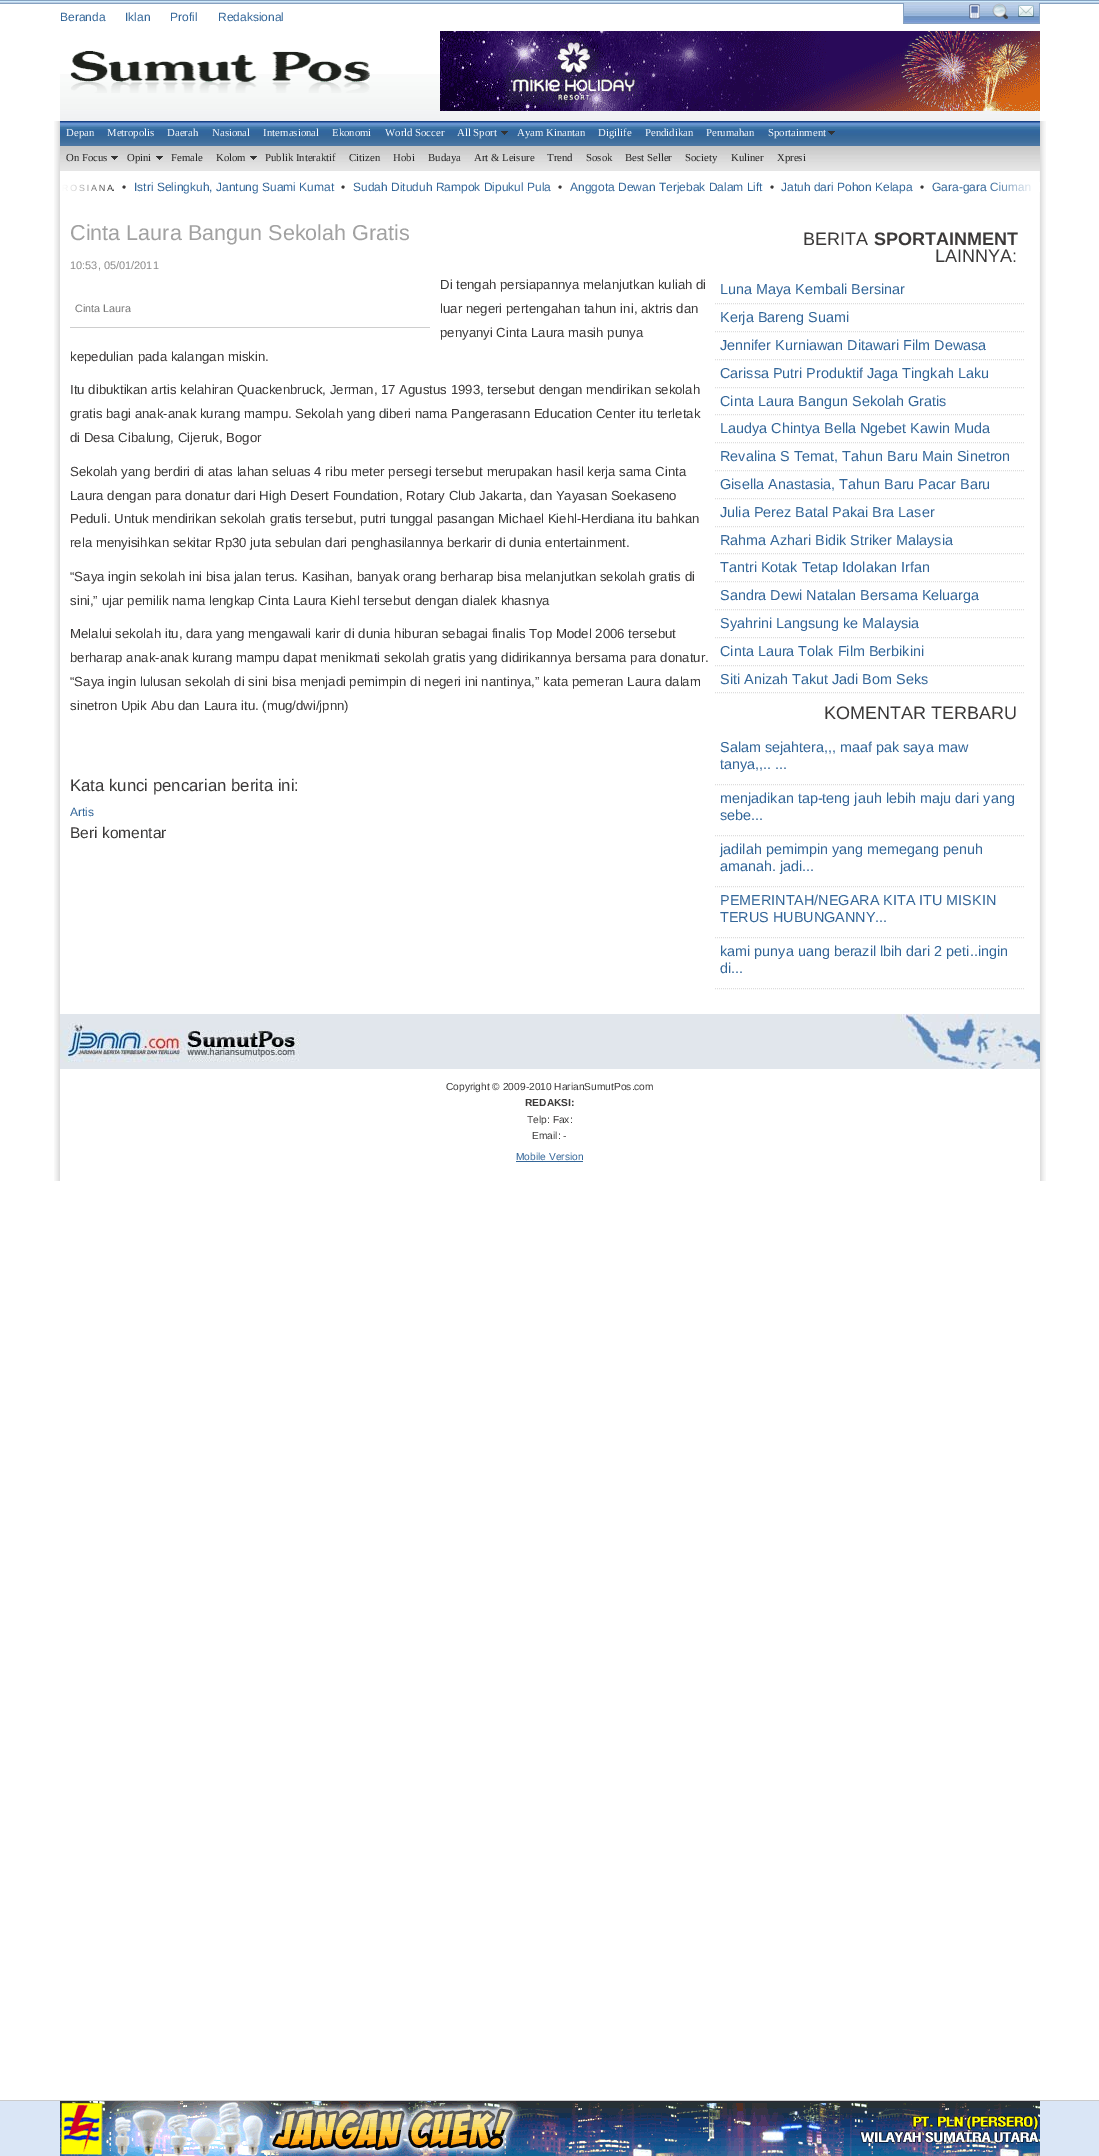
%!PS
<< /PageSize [1099 2156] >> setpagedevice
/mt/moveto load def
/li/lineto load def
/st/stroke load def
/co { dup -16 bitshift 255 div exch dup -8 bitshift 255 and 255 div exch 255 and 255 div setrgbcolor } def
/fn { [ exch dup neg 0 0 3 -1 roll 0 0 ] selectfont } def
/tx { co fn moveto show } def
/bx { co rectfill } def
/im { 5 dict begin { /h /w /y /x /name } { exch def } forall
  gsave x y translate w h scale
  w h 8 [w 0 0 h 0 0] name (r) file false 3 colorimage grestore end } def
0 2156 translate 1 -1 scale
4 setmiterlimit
0 0 1099 2156 16#FFFFFF bx
(media/1.raw) 0 0 1099 3 im
0 3 1099 1 16#86A2C1 bx
(media/2.raw) 904 3 135 20 im
1039 3 1 21 16#86A2C1 bx
903 23 137 1 16#86A2C1 bx
903 3 1 21 16#86A2C1 bx
(media/3.raw) 969 4 11 15 im
(media/4.raw) 992 3 16 16 im
(media/5.raw) 1018 5 16 12 im
(media/6.raw) 60 74 980 47 im
(media/7.raw) 70 50 300 43 im
(media/8.raw) 440 31 600 80 im
(media/9.raw) 54 121 992 1060 im
(media/10.raw) 60 121 980 25 im
(media/11.raw) 501 131 7 4 im
(media/11.raw) 828 131 7 4 im
(media/12.raw) 60 146 980 25 im
(media/13.raw) 111 156 7 4 im
(media/13.raw) 156 156 7 4 im
(media/13.raw) 250 156 7 4 im
70 327 360 1 16#CECECE bx
16#DDDDDD co
[1 1] 0 setdash
715 303.5 mt 1025 303.5 li st
715 331.5 mt 1025 331.5 li st
715 359.5 mt 1025 359.5 li st
715 387.5 mt 1025 387.5 li st
715 414.5 mt 1025 414.5 li st
715 442.5 mt 1025 442.5 li st
715 470.5 mt 1025 470.5 li st
715 498.5 mt 1025 498.5 li st
715 526.5 mt 1025 526.5 li st
715 553.5 mt 1025 553.5 li st
715 581.5 mt 1025 581.5 li st
715 609.5 mt 1025 609.5 li st
715 637.5 mt 1025 637.5 li st
715 665.5 mt 1025 665.5 li st
715 692.5 mt 1025 692.5 li st
715 784.5 mt 1025 784.5 li st
715 835.5 mt 1025 835.5 li st
715 886.5 mt 1025 886.5 li st
715 937.5 mt 1025 937.5 li st
715 988.5 mt 1025 988.5 li st
(media/16.raw) 60 1014 980 55 im
1039 1069 1 112 16#FFFFFF bx
516 1161 67 1 16#336699 bx
0 2101 1099 55 16#DAE6F6 bx
0 2100 1099 1 16#CCCCCC bx
(media/17.raw) 60 2101 980 55 im
(Beranda) 60 21 /LiberationSans-Regular 12 16#336699 tx
(Iklan) 125 21 /LiberationSans-Regular 12 16#336699 tx
(Profil) 170 21 /LiberationSans-Regular 12 16#336699 tx
(Redaksional) 218 21 /LiberationSans-Regular 12 16#336699 tx
(Depan) 66 136 /LiberationSerif-Regular 10.75 16#FAFDFF tx
(Metropolis) 107 136 /LiberationSerif-Regular 10.75 16#FAFDFF tx
(Daerah) 167 136 /LiberationSerif-Regular 10.75 16#FAFDFF tx
(Nasional) 212 136 /LiberationSerif-Regular 10.75 16#FAFDFF tx
(Internasional) 263 136 /LiberationSerif-Regular 10.75 16#FAFDFF tx
(Ekonomi) 332 136 /LiberationSerif-Regular 10.75 16#FAFDFF tx
(World Soccer) 385 136 /LiberationSerif-Regular 10.75 16#FAFDFF tx
(All Sport) 457 136 /LiberationSerif-Regular 10.75 16#FAFDFF tx
(Ayam Kinantan) 517 136 /LiberationSerif-Regular 10.75 16#FAFDFF tx
(Digilife) 598 136 /LiberationSerif-Regular 10.75 16#FAFDFF tx
(Pendidikan) 645 136 /LiberationSerif-Regular 10.75 16#FAFDFF tx
(Perumahan) 706 136 /LiberationSerif-Regular 10.75 16#FAFDFF tx
(Sportainment) 768 136 /LiberationSerif-Regular 10.75 16#FAFDFF tx
(On Focus) 66 161 /LiberationSerif-Regular 10.75 16#262626 tx
(Opini) 127 161 /LiberationSerif-Regular 10.75 16#262626 tx
(Female) 171 161 /LiberationSerif-Regular 10.75 16#262626 tx
(Kolom) 216 161 /LiberationSerif-Regular 10.75 16#262626 tx
(Publik Interaktif) 265 161 /LiberationSerif-Regular 10.75 16#262626 tx
(Citizen) 349 161 /LiberationSerif-Regular 10.75 16#262626 tx
(Hobi) 393 161 /LiberationSerif-Regular 10.75 16#262626 tx
(Budaya) 428 161 /LiberationSerif-Regular 10.75 16#262626 tx
(Art & Leisure) 474 161 /LiberationSerif-Regular 10.75 16#262626 tx
(Trend) 547 161 /LiberationSerif-Regular 10.75 16#262626 tx
(Sosok) 586 161 /LiberationSerif-Regular 10.75 16#262626 tx
(Best Seller) 625 161 /LiberationSerif-Regular 10.75 16#262626 tx
(Society) 685 161 /LiberationSerif-Regular 10.75 16#262626 tx
(Kuliner) 731 161 /LiberationSerif-Regular 10.75 16#262626 tx
(Xpresi) 777 161 /LiberationSerif-Regular 10.75 16#262626 tx
/LiberationSans-Regular 9 fn
79 191 mt 2 0 (SIANA) ashow
(•) 122 191 /LiberationSans-Regular 12 16#3B3939 tx
(Istri Selingkuh, Jantung Suami Kumat) 134 191 /LiberationSans-Regular 12 16#336699 tx
(•) 341 191 /LiberationSans-Regular 12 16#3B3939 tx
(Sudah Dituduh Rampok Dipukul Pula) 353 191 /LiberationSans-Regular 12 16#336699 tx
(•) 558 191 /LiberationSans-Regular 12 16#3B3939 tx
(Anggota Dewan Terjebak Dalam Lift) 570 191 /LiberationSans-Regular 12 16#336699 tx
(•) 770 191 /LiberationSans-Regular 12 16#3B3939 tx
(Jatuh dari Pohon Kelapa) 781 191 /LiberationSans-Regular 12 16#336699 tx
(•) 920 191 /LiberationSans-Regular 12 16#3B3939 tx
(Gara-gara Ciuma) 932 191 /LiberationSans-Regular 12 16#336699 tx
(media/14.raw) 62 184 51 8 im
(media/15.raw) 990 182 50 10 im
(Cinta Laura Bangun Sekolah Gratis) 70 240 /LiberationSans-Regular 21.6 16#A1A1A1 tx
(10:53, 05/01/2011) 70 269 /LiberationSans-Regular 11 16#8A8A8A tx
(Di tengah persiapannya melanjutkan kuliah di) 440 289 /LiberationSans-Regular 13.2 16#3B3939 tx
(luar negeri pertengahan tahun ini, aktris dan) 440 313 /LiberationSans-Regular 13.2 16#3B3939 tx
(penyanyi Cinta Laura masih punya) 440 337 /LiberationSans-Regular 13.2 16#3B3939 tx
(kepedulian pada kalangan miskin.) 70 361 /LiberationSans-Regular 13.2 16#3B3939 tx
(Cinta Laura) 75 312 /LiberationSans-Regular 10.75 16#7A7A7A tx
(Itu dibuktikan artis kelahiran Quackenbruck, Jerman, 17 Agustus 1993, tersebut dengan mendirikan sekolah) 70 394 /LiberationSans-Regular 13.2 16#3B3939 tx
(gratis bagi anak-anak kurang mampu. Sekolah yang diberi nama Pangerasann Education Center itu terletak) 70 418 /LiberationSans-Regular 13.2 16#3B3939 tx
(di Desa Cibalung, Cijeruk, Bogor) 70 442 /LiberationSans-Regular 13.2 16#3B3939 tx
(Sekolah yang berdiri di atas lahan seluas 4 ribu meter persegi tersebut merupakan hasil kerja sama Cinta) 70 476 /LiberationSans-Regular 13.2 16#3B3939 tx
(Laura dengan para donatur dari High Desert Foundation, Rotary Club Jakarta, dan Yayasan Soekaseno) 70 500 /LiberationSans-Regular 13.2 16#3B3939 tx
(Peduli. Untuk mendirikan sekolah gratis tersebut, putri tunggal pasangan Michael Kiehl-Herdiana itu bahkan) 70 523 /LiberationSans-Regular 13.2 16#3B3939 tx
(rela menyisihkan sekitar Rp30 juta sebulan dari penghasilannya berkarir di dunia entertainment.) 70 547 /LiberationSans-Regular 13.2 16#3B3939 tx
(“Saya ingin sekolah ini bisa jalan terus. Kasihan, banyak orang berharap bisa melanjutkan sekolah gratis di) 70 581 /LiberationSans-Regular 13.2 16#3B3939 tx
(sini,” ujar pemilik nama lengkap Cinta Laura Kiehl tersebut dengan dialek khasnya) 70 605 /LiberationSans-Regular 13.2 16#3B3939 tx
(Melalui sekolah itu, dara yang mengawali karir di dunia hiburan sebagai finalis Top Model 2006 tersebut) 70 638 /LiberationSans-Regular 13.2 16#3B3939 tx
(berharap anak-anak kurang mampu dapat menikmati sekolah gratis yang didirikannya bersama para donatur.) 70 662 /LiberationSans-Regular 13.2 16#3B3939 tx
(“Saya ingin lulusan sekolah di sini bisa menjadi pemimpin di negeri ini nantinya,” kata pemeran Laura dalam) 70 686 /LiberationSans-Regular 13.2 16#3B3939 tx
(sinetron Upik Abu dan Laura itu. \(mug/dwi/jpnn\)) 70 710 /LiberationSans-Regular 13.2 16#3B3939 tx
(Kata kunci pencarian berita ini:) 70 791 /LiberationSans-Regular 16.75 16#3B3939 tx
(Artis) 70 816 /LiberationSans-Regular 12 16#336699 tx
(Beri komentar) 70 838 /LiberationSans-Regular 15.5 16#3B3939 tx
(BERITA) 803 245 /LiberationSans-Regular 18 16#3B3939 tx
(SPORTAINMENT) 874 245 /LiberationSans-Bold 18 16#3B3939 tx
(LAINNYA:) 935 262 /LiberationSans-Regular 18 16#3B3939 tx
(Luna Maya Kembali Bersinar) 720 294 /LiberationSans-Regular 14.4 16#336699 tx
(Kerja Bareng Suami) 720 322 /LiberationSans-Regular 14.4 16#336699 tx
(Jennifer Kurniawan Ditawari Film Dewasa) 720 350 /LiberationSans-Regular 14.4 16#336699 tx
(Carissa Putri Produktif Jaga Tingkah Laku) 720 378 /LiberationSans-Regular 14.4 16#336699 tx
(Cinta Laura Bangun Sekolah Gratis) 720 406 /LiberationSans-Regular 14.4 16#336699 tx
(Laudya Chintya Bella Ngebet Kawin Muda) 720 433 /LiberationSans-Regular 14.4 16#336699 tx
(Revalina S Temat, Tahun Baru Main Sinetron) 720 461 /LiberationSans-Regular 14.4 16#336699 tx
(Gisella Anastasia, Tahun Baru Pacar Baru) 720 489 /LiberationSans-Regular 14.4 16#336699 tx
(Julia Perez Batal Pakai Bra Laser) 720 517 /LiberationSans-Regular 14.4 16#336699 tx
(Rahma Azhari Bidik Striker Malaysia) 720 545 /LiberationSans-Regular 14.4 16#336699 tx
(Tantri Kotak Tetap Idolakan Irfan) 720 572 /LiberationSans-Regular 14.4 16#336699 tx
(Sandra Dewi Natalan Bersama Keluarga) 720 600 /LiberationSans-Regular 14.4 16#336699 tx
(Syahrini Langsung ke Malaysia) 720 628 /LiberationSans-Regular 14.4 16#336699 tx
(Cinta Laura Tolak Film Berbikini) 720 656 /LiberationSans-Regular 14.4 16#336699 tx
(Siti Anizah Takut Jadi Bom Seks) 720 684 /LiberationSans-Regular 14.4 16#336699 tx
(KOMENTAR TERBARU) 824 719 /LiberationSans-Regular 18 16#3B3939 tx
(Salam sejahtera,,, maaf pak saya maw) 720 752 /LiberationSans-Regular 14.4 16#336699 tx
(tanya,,.. ...) 720 769 /LiberationSans-Regular 14.4 16#336699 tx
(menjadikan tap-teng jauh lebih maju dari yang) 720 803 /LiberationSans-Regular 14.4 16#336699 tx
(sebe...) 720 820 /LiberationSans-Regular 14.4 16#336699 tx
(jadilah pemimpin yang memegang penuh) 720 854 /LiberationSans-Regular 14.4 16#336699 tx
(amanah. jadi...) 720 871 /LiberationSans-Regular 14.4 16#336699 tx
(PEMERINTAH/NEGARA KITA ITU MISKIN) 720 905 /LiberationSans-Regular 14.4 16#336699 tx
(TERUS HUBUNGANNY...) 720 922 /LiberationSans-Regular 14.4 16#336699 tx
(kami punya uang berazil lbih dari 2 peti..ingin) 720 956 /LiberationSans-Regular 14.4 16#336699 tx
(di...) 720 973 /LiberationSans-Regular 14.4 16#336699 tx
(Copyright © 2009-2010 HarianSumutPos.com) 446 1090 /LiberationSans-Regular 10.2 16#3B3939 tx
(REDAKSI:) 525 1106 /LiberationSans-Bold 10.2 16#3B3939 tx
(Telp: Fax:) 527 1123 /LiberationSans-Regular 10.2 16#3B3939 tx
(Email: -) 532 1139 /LiberationSans-Regular 10.2 16#3B3939 tx
(Mobile Version) 516 1160 /LiberationSans-Regular 10.2 16#336699 tx
showpage
